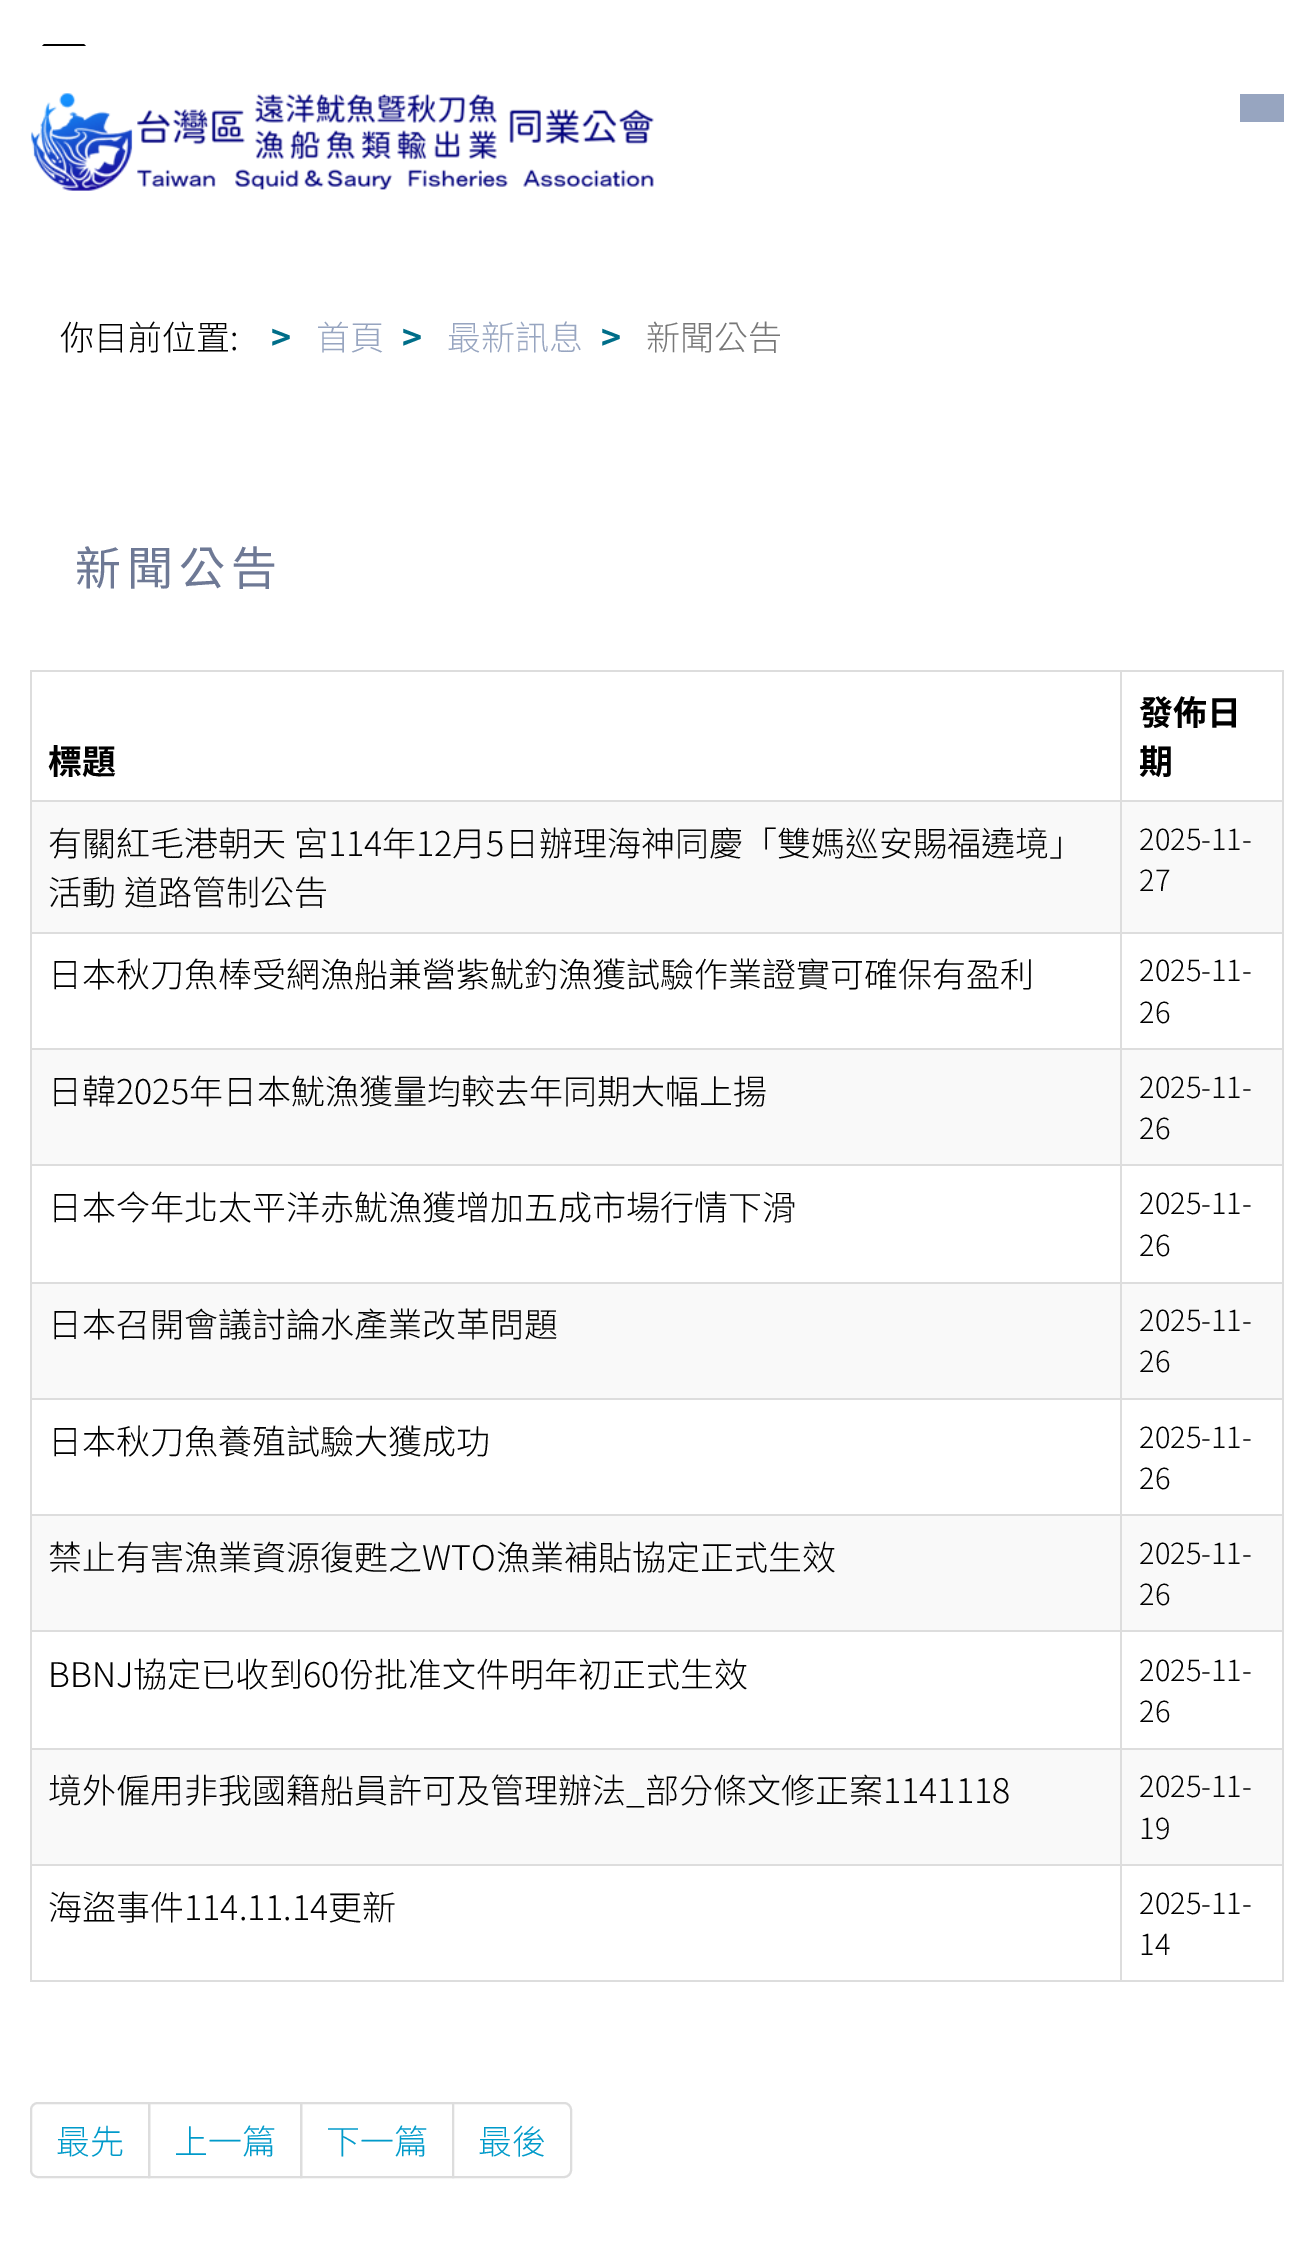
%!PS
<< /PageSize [1313 2268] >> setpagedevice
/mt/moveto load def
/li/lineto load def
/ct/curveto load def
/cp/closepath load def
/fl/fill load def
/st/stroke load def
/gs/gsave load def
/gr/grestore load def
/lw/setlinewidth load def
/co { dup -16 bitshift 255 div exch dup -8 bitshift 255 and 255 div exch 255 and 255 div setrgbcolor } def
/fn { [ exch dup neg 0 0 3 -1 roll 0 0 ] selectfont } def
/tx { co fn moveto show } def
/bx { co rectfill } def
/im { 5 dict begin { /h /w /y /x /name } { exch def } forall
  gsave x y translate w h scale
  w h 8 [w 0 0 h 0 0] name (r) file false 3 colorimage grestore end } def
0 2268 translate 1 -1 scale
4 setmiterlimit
0 0 1313 2268 16#FFFFFF bx
16#000000 co
86 46 mt 42 46 li 44 44 li 84 44 li cp fl
(media/1.raw) 31 93 623 98 im
1240 94 44 28 16#97A5C0 bx
30 670 1254 2 16#DDDDDD bx
1282 670 2 1312 16#DDDDDD bx
30 1980 1254 2 16#DDDDDD bx
30 670 2 1312 16#DDDDDD bx
1120 800 164 2 16#DDDDDD bx
32 802 1250 130 16#F9F9F9 bx
1120 932 164 2 16#DDDDDD bx
1120 1048 164 2 16#DDDDDD bx
32 1050 1250 114 16#F9F9F9 bx
1120 1164 164 2 16#DDDDDD bx
1120 1282 164 2 16#DDDDDD bx
32 1284 1250 114 16#F9F9F9 bx
1120 1398 164 2 16#DDDDDD bx
1120 1514 164 2 16#DDDDDD bx
32 1516 1250 114 16#F9F9F9 bx
1120 1630 164 2 16#DDDDDD bx
1120 1748 164 2 16#DDDDDD bx
32 1750 1250 114 16#F9F9F9 bx
1120 1864 164 2 16#DDDDDD bx
1120 1864 2 118 16#DDDDDD bx
30 1864 1092 2 16#DDDDDD bx
1120 1748 2 118 16#DDDDDD bx
30 1748 1092 2 16#DDDDDD bx
1120 1630 2 120 16#DDDDDD bx
30 1630 1092 2 16#DDDDDD bx
1120 1514 2 118 16#DDDDDD bx
30 1514 1092 2 16#DDDDDD bx
1120 1398 2 118 16#DDDDDD bx
30 1398 1092 2 16#DDDDDD bx
1120 1282 2 118 16#DDDDDD bx
30 1282 1092 2 16#DDDDDD bx
1120 1164 2 120 16#DDDDDD bx
30 1164 1092 2 16#DDDDDD bx
1120 1048 2 118 16#DDDDDD bx
30 1048 1092 2 16#DDDDDD bx
1120 932 2 118 16#DDDDDD bx
30 932 1092 2 16#DDDDDD bx
1120 800 2 134 16#DDDDDD bx
30 800 1092 2 16#DDDDDD bx
1120 670 2 132 16#DDDDDD bx
2 lw
38 2103 mt 149 2103 li 149 2177 li 38 2177 li 34 2177 31 2174 31 2170 ct 31 2110 li 31 2106 34 2103 38 2103 ct cp st
149 2103 152 74 rectstroke
301 2103 152 74 rectstroke
16#FFFFFF co
453 2103 mt 564 2103 li 568 2103 571 2106 571 2110 ct 571 2170 li 571 2174 568 2177 564 2177 ct 453 2177 li cp gs fl gr
16#DDDDDD co
st
(你目前位置:) 60 350 /NotoSansTC-Light 34 16#000000 tx
(>) 271 350 /NotoSansTC-Bold 34 16#006E89 tx
(首頁) 316 350 /NotoSansTC-Light 34 16#97A5C0 tx
(>) 402 350 /NotoSansTC-Bold 34 16#006E89 tx
(最新訊息) 447 350 /NotoSansTC-Light 34 16#97A5C0 tx
(>) 601 350 /NotoSansTC-Bold 34 16#006E89 tx
(新聞公告) 646 350 /NotoSansTC-Light 34 16#777777 tx
/NotoSansTC-Regular 46 fn
16#6E7995 co
75 585 mt 6 0 (新聞公告) ashow
(標題) 48 774 /NotoSansTC-Bold 34 16#000000 tx
(發佈日) 1139 725 /NotoSansTC-Bold 34 16#000000 tx
(期) 1139 774 /NotoSansTC-Bold 34 16#000000 tx
(有關紅毛港朝天 宮114年12月5日辦理海神同慶「雙媽巡安賜福遶境」) 48 856 /NotoSansTC-Light 34 16#000000 tx
(活動 道路管制公告) 48 905 /NotoSansTC-Light 34 16#000000 tx
(2025-11-) 1139 850 /NotoSansTC-Light 29 16#000000 tx
(27) 1139 891 /NotoSansTC-Light 29 16#000000 tx
(日本秋刀魚棒受網漁船兼營紫魷釣漁獲試驗作業證實可確保有盈利) 48 987 /NotoSansTC-Light 34 16#000000 tx
(2025-11-) 1139 981 /NotoSansTC-Light 29 16#000000 tx
(26) 1139 1023 /NotoSansTC-Light 29 16#000000 tx
(日韓2025年日本魷漁獲量均較去年同期大幅上揚) 48 1104 /NotoSansTC-Light 34 16#000000 tx
(2025-11-) 1139 1098 /NotoSansTC-Light 29 16#000000 tx
(26) 1139 1139 /NotoSansTC-Light 29 16#000000 tx
(日本今年北太平洋赤魷漁獲增加五成市場行情下滑) 48 1220 /NotoSansTC-Light 34 16#000000 tx
(2025-11-) 1139 1214 /NotoSansTC-Light 29 16#000000 tx
(26) 1139 1256 /NotoSansTC-Light 29 16#000000 tx
(日本召開會議討論水產業改革問題) 48 1337 /NotoSansTC-Light 34 16#000000 tx
(2025-11-) 1139 1331 /NotoSansTC-Light 29 16#000000 tx
(26) 1139 1372 /NotoSansTC-Light 29 16#000000 tx
(日本秋刀魚養殖試驗大獲成功) 48 1454 /NotoSansTC-Light 34 16#000000 tx
(2025-11-) 1139 1448 /NotoSansTC-Light 29 16#000000 tx
(26) 1139 1489 /NotoSansTC-Light 29 16#000000 tx
(禁止有害漁業資源復甦之WTO漁業補貼協定正式生效) 48 1570 /NotoSansTC-Light 34 16#000000 tx
(2025-11-) 1139 1564 /NotoSansTC-Light 29 16#000000 tx
(26) 1139 1605 /NotoSansTC-Light 29 16#000000 tx
(BBNJ協定已收到60份批准文件明年初正式生效) 48 1687 /NotoSansTC-Light 34 16#000000 tx
(2025-11-) 1139 1681 /NotoSansTC-Light 29 16#000000 tx
(26) 1139 1722 /NotoSansTC-Light 29 16#000000 tx
(境外僱用非我國籍船員許可及管理辦法_部分條文修正案1141118) 48 1803 /NotoSansTC-Light 34 16#000000 tx
(2025-11-) 1139 1797 /NotoSansTC-Light 29 16#000000 tx
(19) 1139 1839 /NotoSansTC-Light 29 16#000000 tx
(海盜事件114.11.14更新) 48 1920 /NotoSansTC-Light 34 16#000000 tx
(2025-11-) 1139 1914 /NotoSansTC-Light 29 16#000000 tx
(14) 1139 1955 /NotoSansTC-Light 29 16#000000 tx
(最先) 56 2154 /NotoSansTC-Light 34 16#009ACA tx
(上一篇) 174 2154 /NotoSansTC-Light 34 16#009ACA tx
(下一篇) 326 2154 /NotoSansTC-Light 34 16#009ACA tx
(最後) 478 2154 /NotoSansTC-Light 34 16#009ACA tx
showpage
